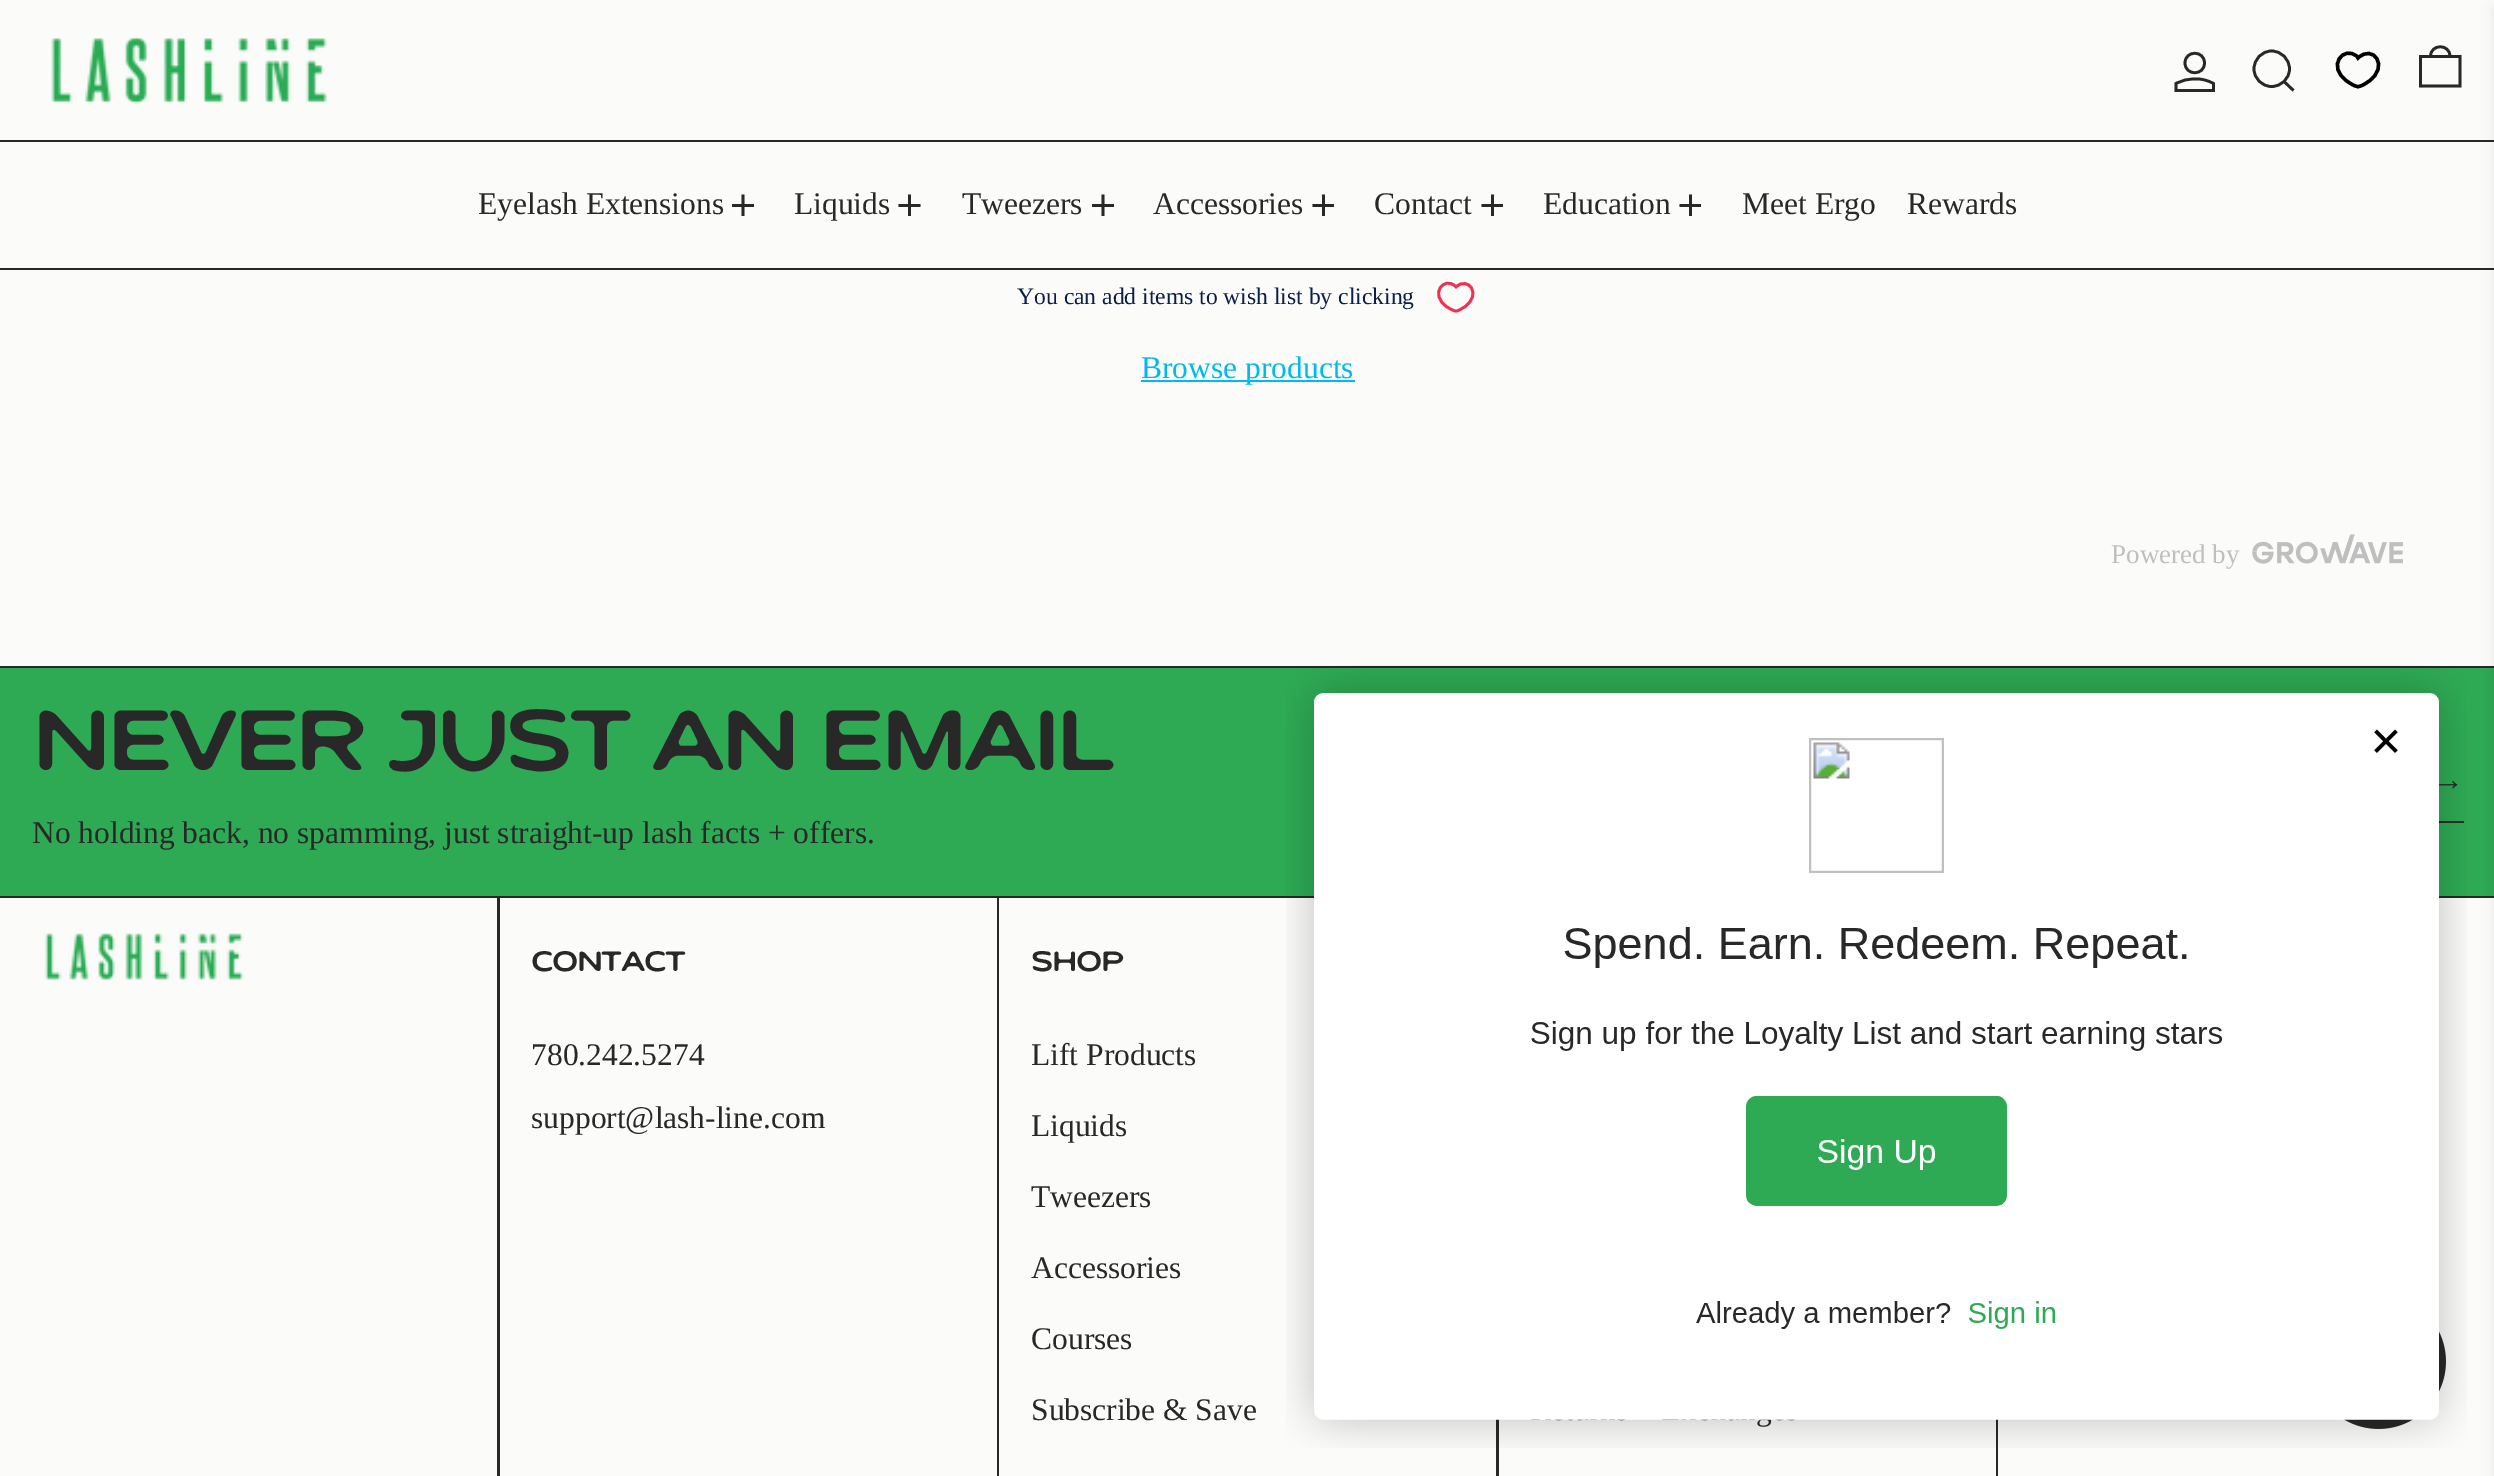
%!PS
<< /PageSize [2494 1476] /PageUsesTransparency true >> setpagedevice
/mt/moveto load def
/li/lineto load def
/ct/curveto load def
/cp/closepath load def
/fl/fill load def
/st/stroke load def
/gs/gsave load def
/gr/grestore load def
/lw/setlinewidth load def
/co { dup -16 bitshift 255 div exch dup -8 bitshift 255 and 255 div exch 255 and 255 div setrgbcolor } def
/fn { [ exch dup neg 0 0 3 -1 roll 0 0 ] selectfont } def
/tx { co fn moveto show } def
/bx { co rectfill } def
/al { dup .setfillconstantalpha .setstrokeconstantalpha } def
/ci { newpath 0 360 arc closepath } def
/rr { 5 dict begin { /r /h /w /y /x } { exch def } forall
  x r add y moveto x w add y 2 copy h add r arct x w add y h add x 1 index r arct
  x y h add x y r arct x y 2 copy exch w add exch r arct closepath end } def
/sh { 12 dict begin { /a /b /q /h /w /y /x } { exch def } forall gsave /was 0 def
  9 -2 -9 { dup b mul 4 div /e exch def 1 sub .425 mul 2.718 exch exp 1 add a .99 .min exch div /now exch def
    1 1 now sub 1 was sub div sub al /was now def
    w h .min e 2 mul add 0 gt { x e sub y e sub w e 2 mul add h e 2 mul add
      q e add b .6 mul add w h .min 2 div e add .min 0 .max rr fill } if } for grestore end } def
/im { 5 dict begin { /h /w /y /x /name } { exch def } forall
  gsave x y translate w h scale
  w h 8 [w 0 0 h 0 0] name (r) file false 3 colorimage grestore end } def
0 .pushpdf14devicefilter
0 1476 translate 1 -1 scale
4 setmiterlimit
0 0 2494 1476 16#FBFBF9 bx
0 268 2494 2 16#282828 bx
(media/1.raw) 51 36 276 69 im
2.7 lw
2195 79 mt 2188.5 78.5 2182 80.5 2176 83.5 ct 2176 90.5 li 2213.5 90.5 li 2213.5 83.5 li 2208 80.5 2201.5 78.5 2195 79 ct cp 2185 63 mt 2185 76 2204.5 76 2204.5 63 ct 2204.5 50 2185 50 2185 63 ct cp st
2254 69 mt 2254 78.5 2262 86.5 2271.5 86.5 ct 2281.5 86.5 2289.5 78.5 2289.5 69 ct 2289.5 59 2281.5 51 2271.5 51 ct 2262 51 2254 59 2254 69 ct cp 2284 81.5 mt 2293.5 90.5 li st
16#000000 co
3.4 lw
2357 56.5 mt 2358 58 li 2373 43.5 2390 66.5 2368.5 81.5 ct 2365.5 83.5 2361.5 86.5 2358 86.5 ct 2354.5 86.5 2350.5 83.5 2347.5 81.5 ct 2325.5 66.5 2344 44.5 2357 56.5 ct cp st
16#282828 co
2.7 lw
2420.5 56.5 mt 2460 56.5 li 2460 86 li 2420.5 86 li cp 2450 56.5 mt 2450 43.5 2430.5 43.5 2430.5 56.5 ct st
0 140 2494 2 16#282828 bx
743 194.5 mt 743 216 li 732 205.5 mt 754 205.5 li st
909.5 194.5 mt 909.5 216 li 898.5 205.5 mt 920.5 205.5 li st
1103 194.5 mt 1103 216 li 1092 205.5 mt 1114 205.5 li st
gs
1312 194 22 22 rectclip
1323.5 194.5 mt 1323.5 216 li 1312.5 205.5 mt 1334.5 205.5 li st
gr
1492.5 194.5 mt 1492.5 216 li 1481.5 205.5 mt 1503 205.5 li st
1690.5 194.5 mt 1690.5 216 li 1679.5 205.5 mt 1701 205.5 li st
0 666 2494 2 16#282828 bx
0 668 2494 228 16#2EAA54 bx
0 896 2494 2 16#282828 bx
16#000000 co
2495 9 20 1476 0 7 .1 sh
16#EF3251 co
2.8 lw
1455 286 mt 1456 287 li 1468 275.5 1482.5 294.5 1464.5 307 ct 1462.5 308 1458.5 311 1456 311 ct 1453 311 1449 308 1447 307 ct 1428.5 294 1444.5 276 1455 286 ct cp st
1141 380 214 2 16#00BAEE bx
(media/2.raw) 2252 534 151 30 im
2439 821 25 2 16#282828 bx
497 898 1501 578 16#282828 bx
(media/4.raw) 44 933 200 48 im
500 898 497 578 16#FBFBF9 bx
999 898 497 578 16#FBFBF9 bx
1499 1419 497 57 16#FBFBF9 bx
16#282828 co
2378.5 1361.5 67.5 ci fl
(Eyelash Extensions) 478 214 /LiberationSerif-Regular 31.5 16#282828 tx
(Liquids) 794 214 /LiberationSerif-Regular 31.5 16#282828 tx
(Tweezers) 962 214 /LiberationSerif-Regular 31.5 16#282828 tx
(Accessories) 1153 214 /LiberationSerif-Regular 31.5 16#282828 tx
(Contact) 1374 214 /LiberationSerif-Regular 31.5 16#282828 tx
(Education) 1543 214 /LiberationSerif-Regular 31.5 16#282828 tx
(Meet Ergo) 1742 214 /LiberationSerif-Regular 31.5 16#282828 tx
(Rewards) 1907 214 /LiberationSerif-Regular 31.5 16#282828 tx
(You can add items to wish list by clicking) 1017 304 /LiberationSerif-Regular 23.6 16#0B1E47 tx
(Browse products) 1141 378 /LiberationSerif-Regular 31.5 16#00BAEE tx
(Powered by) 2111 563 /LiberationSerif-Regular 27 16#BFBFBF tx
/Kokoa-Regular 96.1 fn
16#282828 co
32 770 mt -4.8 0 (NEVER JUST AN EMAIL) ashow
(No holding back, no spamming, just straight-up lash facts + offers.) 32 843 /LiberationSerif-Regular 31.5 16#282828 tx
(→) 2432 790 /LiberationSerif-Regular 31.5 16#282828 tx
(media/3.raw) 1286 665 1181 783 im
/Kokoa-Regular 31.5 fn
531 971 mt -1.5 0 (CONTACT) ashow
(780.242.5274) 531 1065 /LiberationSerif-Regular 31.5 16#282828 tx
(support@lash-line.com) 531 1128 /LiberationSerif-Regular 31.5 16#282828 tx
/Kokoa-Regular 31.5 fn
1031 971 mt -1.5 0 (SHOP) ashow
(Lift Products) 1031 1065 /LiberationSerif-Regular 31.5 16#282828 tx
(Liquids) 1031 1136 /LiberationSerif-Regular 31.5 16#282828 tx
(Tweezers) 1031 1207 /LiberationSerif-Regular 31.5 16#282828 tx
(Accessories) 1031 1278 /LiberationSerif-Regular 31.5 16#282828 tx
(Courses) 1031 1349 /LiberationSerif-Regular 31.5 16#282828 tx
(Subscribe & Save) 1031 1420 /LiberationSerif-Regular 31.5 16#282828 tx
.poppdf14devicefilter showpage
